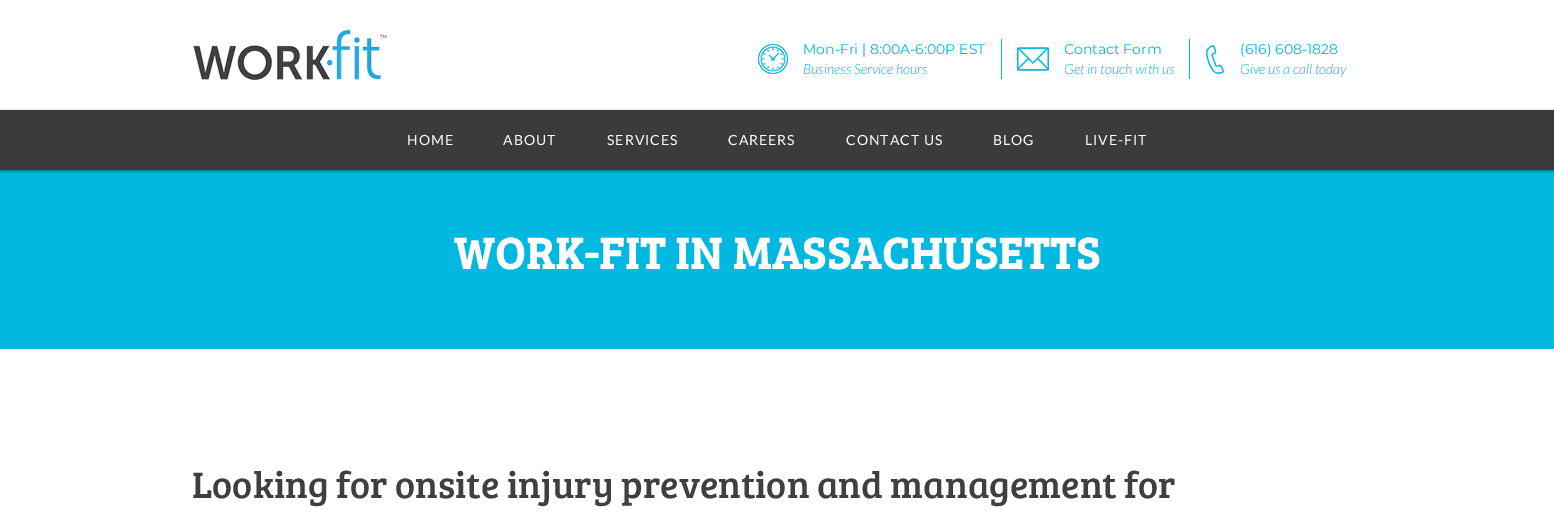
%!PS
<< /PageSize [1554 512] /PageUsesTransparency true >> setpagedevice
/mt/moveto load def
/co { dup -16 bitshift 255 div exch dup -8 bitshift 255 and 255 div exch 255 and 255 div setrgbcolor } def
/fn { [ exch dup neg 0 0 3 -1 roll 0 0 ] selectfont } def
/tx { co fn moveto show } def
/bx { co rectfill } def
/al { dup .setfillconstantalpha .setstrokeconstantalpha } def
/rr { 5 dict begin { /r /h /w /y /x } { exch def } forall
  x r add y moveto x w add y 2 copy h add r arct x w add y h add x 1 index r arct
  x y h add x y r arct x y 2 copy exch w add exch r arct closepath end } def
/sh { 12 dict begin { /a /b /q /h /w /y /x } { exch def } forall gsave /was 0 def
  9 -2 -9 { dup b mul 4 div /e exch def 1 sub .425 mul 2.718 exch exp 1 add a .99 .min exch div /now exch def
    1 1 now sub 1 was sub div sub al /was now def
    w h .min e 2 mul add 0 gt { x e sub y e sub w e 2 mul add h e 2 mul add
      q e add b .6 mul add w h .min 2 div e add .min 0 .max rr fill } if } for grestore end } def
/im { 5 dict begin { /h /w /y /x /name } { exch def } forall
  gsave x y translate w h scale
  w h 8 [w 0 0 h 0 0] name (r) file false 3 colorimage grestore end } def
0 .pushpdf14devicefilter
0 512 translate 1 -1 scale
4 setmiterlimit
0 0 1554 512 16#FFFFFF bx
(media/1.raw) 193 30 194 50 im
(media/2.raw) 758 44 30 30 im
1001 39 1 40 16#00B8E0 bx
(media/3.raw) 1017 47 32 24 im
1189 39 1 40 16#00B8E0 bx
(media/4.raw) 1205 45 19 29 im
0 170 1554 179 16#00B8E0 bx
16#000000 co
0 111 1554 60 0 1.5 .4 sh
0 110 1554 60 16#3B3B3B bx
(Mon-Fri | 8:00A-6:00P EST) 803 54 /Montserrat-Regular 14 16#00B8E0 tx
(Business Service hours) 803 74 /Lato-LightItalic 14 16#00B8E0 tx
(Contact Form) 1064 54 /Montserrat-Regular 14 16#00B8E0 tx
(Get in touch with us) 1064 74 /Lato-LightItalic 14 16#00B8E0 tx
(\(616\) 608-1828) 1240 54 /Montserrat-Regular 14 16#00B8E0 tx
(Give us a call today) 1240 74 /Lato-LightItalic 14 16#00B8E0 tx
/Lato-Regular 14 fn
16#FFFFFF co
407 145 mt 1 0 (HOME) ashow
503 145 mt 1 0 (ABOUT) ashow
607 145 mt 1 0 (SERVICES) ashow
728 145 mt 1 0 (CAREERS) ashow
846 145 mt 1 0 (CONTACT US) ashow
993 145 mt 1 0 (BLOG) ashow
1085 145 mt 1 0 (LIVE-FIT) ashow
/BreeSerif-Bold 45 fn
454 269 mt 1 0 (WORK-FIT IN MASSACHUSETTS) ashow
(Looking for onsite injury prevention and management for) 192 498 /BreeSerif-Regular 38 16#3F3F3F tx
.poppdf14devicefilter showpage
